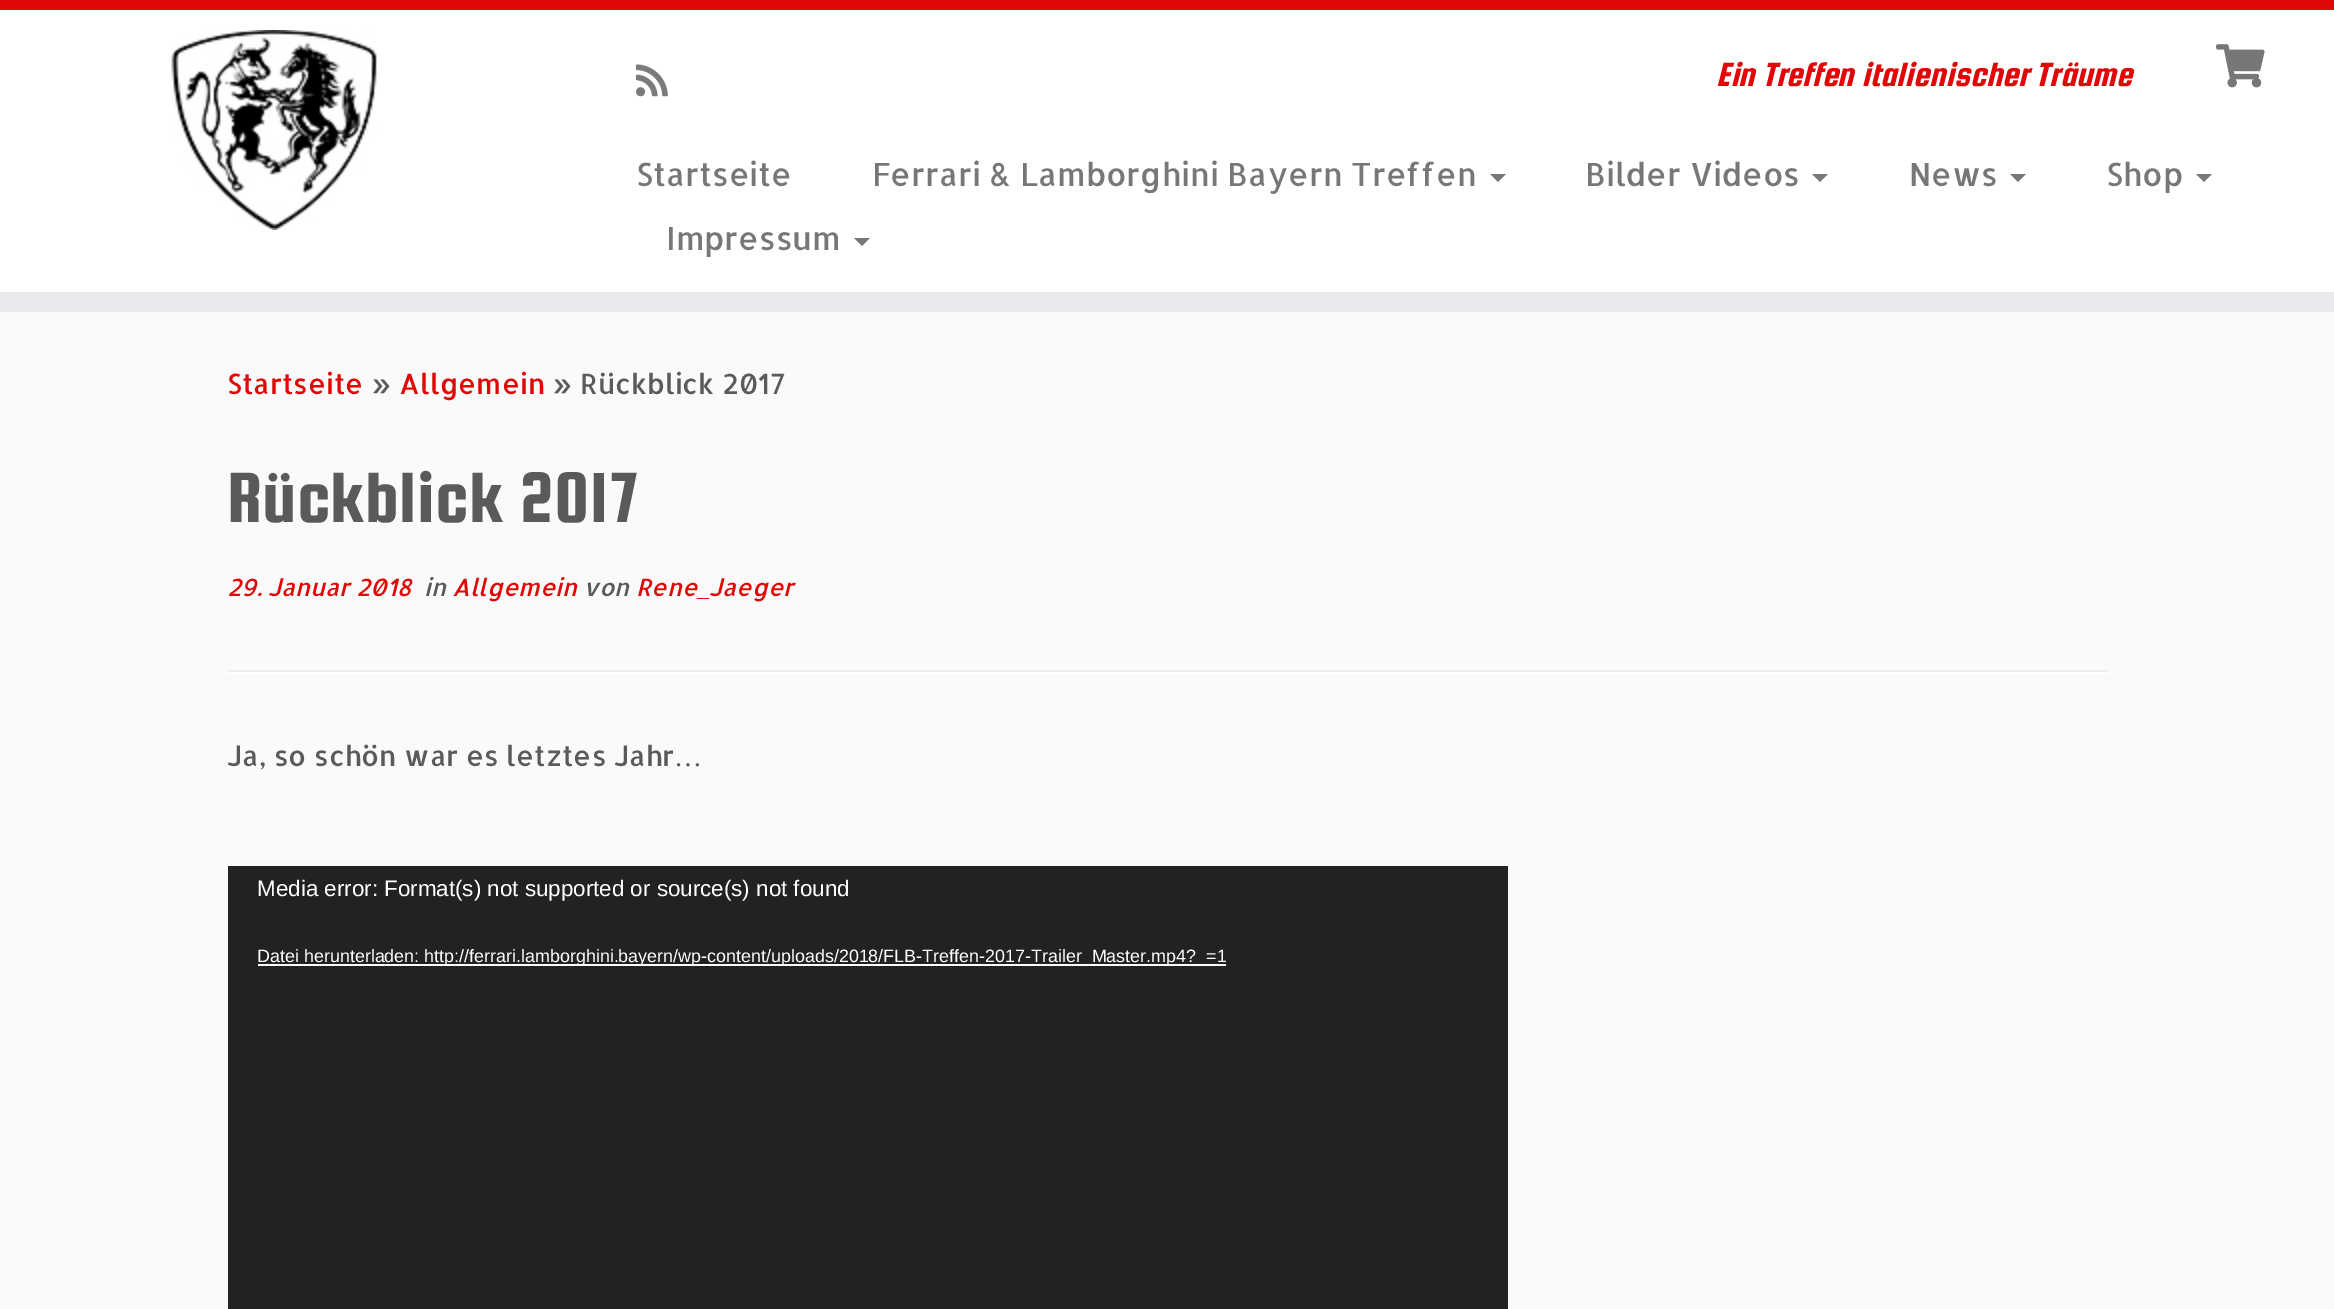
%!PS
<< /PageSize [2334 1309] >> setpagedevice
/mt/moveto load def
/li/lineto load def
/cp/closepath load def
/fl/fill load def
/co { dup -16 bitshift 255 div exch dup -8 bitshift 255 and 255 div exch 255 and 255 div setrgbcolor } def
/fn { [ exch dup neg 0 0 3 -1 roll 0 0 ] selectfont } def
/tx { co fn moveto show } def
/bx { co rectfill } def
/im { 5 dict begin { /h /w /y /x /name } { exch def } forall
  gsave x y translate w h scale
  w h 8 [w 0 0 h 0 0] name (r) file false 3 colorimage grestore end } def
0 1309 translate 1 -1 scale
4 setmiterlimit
0 0 2334 1309 16#FAFAFA bx
0 10 2334 282 16#FFFFFF bx
0 0 2334 10 16#E10707 bx
0 292 2334 20 16#E9EAEE bx
(media/1.raw) 171 30 206 200 im
(media/2.raw) 636 64 32 33 im
(media/3.raw) 2216 44 49 44 im
16#777777 co
1490 174 mt 1506 174 li 1498 182 li cp fl
1812 174 mt 1828 174 li 1820 182 li cp fl
2010 174 mt 2026 174 li 2018 182 li cp fl
2196 174 mt 2212 174 li 2204 182 li cp fl
854 238 mt 870 238 li 862 246 li cp fl
228 670 1880 2 16#EEEEEE bx
228 672 1880 2 16#FFFFFF bx
228 866 1280 443 16#222222 bx
258 964 968 2 16#FFFFFF bx
(Ein Treffen italienischer Träume) 1716 86 /SquadaOne-Italic 36 16#E10707 tx
(Startseite) 636 186 /Allerta-Regular 32 16#777777 tx
(Ferrari & Lamborghini Bayern Treffen) 872 186 /Allerta-Regular 32 16#777777 tx
(Bilder Videos) 1585 186 /Allerta-Regular 32 16#777777 tx
(News) 1909 186 /Allerta-Regular 32 16#777777 tx
(Shop) 2106 186 /Allerta-Regular 32 16#777777 tx
(Impressum) 666 250 /Allerta-Regular 32 16#777777 tx
(Startseite) 227 394 /Allerta-Regular 28 16#E10707 tx
(») 371 394 /Allerta-Regular 28 16#5A5A5A tx
(Allgemein) 399 394 /Allerta-Regular 28 16#E10707 tx
(» Rückblick 2017) 552 394 /Allerta-Regular 28 16#5A5A5A tx
(Rückblick 2017) 227 522 /SquadaOne-Regular 76 16#5A5A5A tx
(29. Januar 2018) 227 596 /Allerta-Italic 24 16#E10707 tx
(in) 424 596 /Allerta-Italic 24 16#5A5A5A tx
(Allgemein) 452 596 /Allerta-Italic 24 16#E10707 tx
(von) 583 596 /Allerta-Italic 24 16#5A5A5A tx
(Rene) 636 596 /Allerta-Italic 24 16#E10707 tx
(Jaeger) 709 596 /Allerta-Italic 24 16#E10707 tx
(_) 697 596 /LiberationSerif-Italic 24 16#E10707 tx
(Ja, so schön war es letztes Jahr) 227 766 /Allerta-Regular 28 16#5A5A5A tx
(…) 674 766 /LiberationSerif-Regular 28 16#5A5A5A tx
(Media error: Format\(s\) not supported or source\(s\) not found) 257 896 /LiberationSans-Regular 22.4 16#FFFFFF tx
(Datei herunterladen: http://ferrari.lamborghini.bayern/wp-content/uploads/2018/FLB-Treffen-2017-Trailer_Master.mp4?_=1) 257 962 /LiberationSans-Regular 17.92 16#FFFFFF tx
showpage
